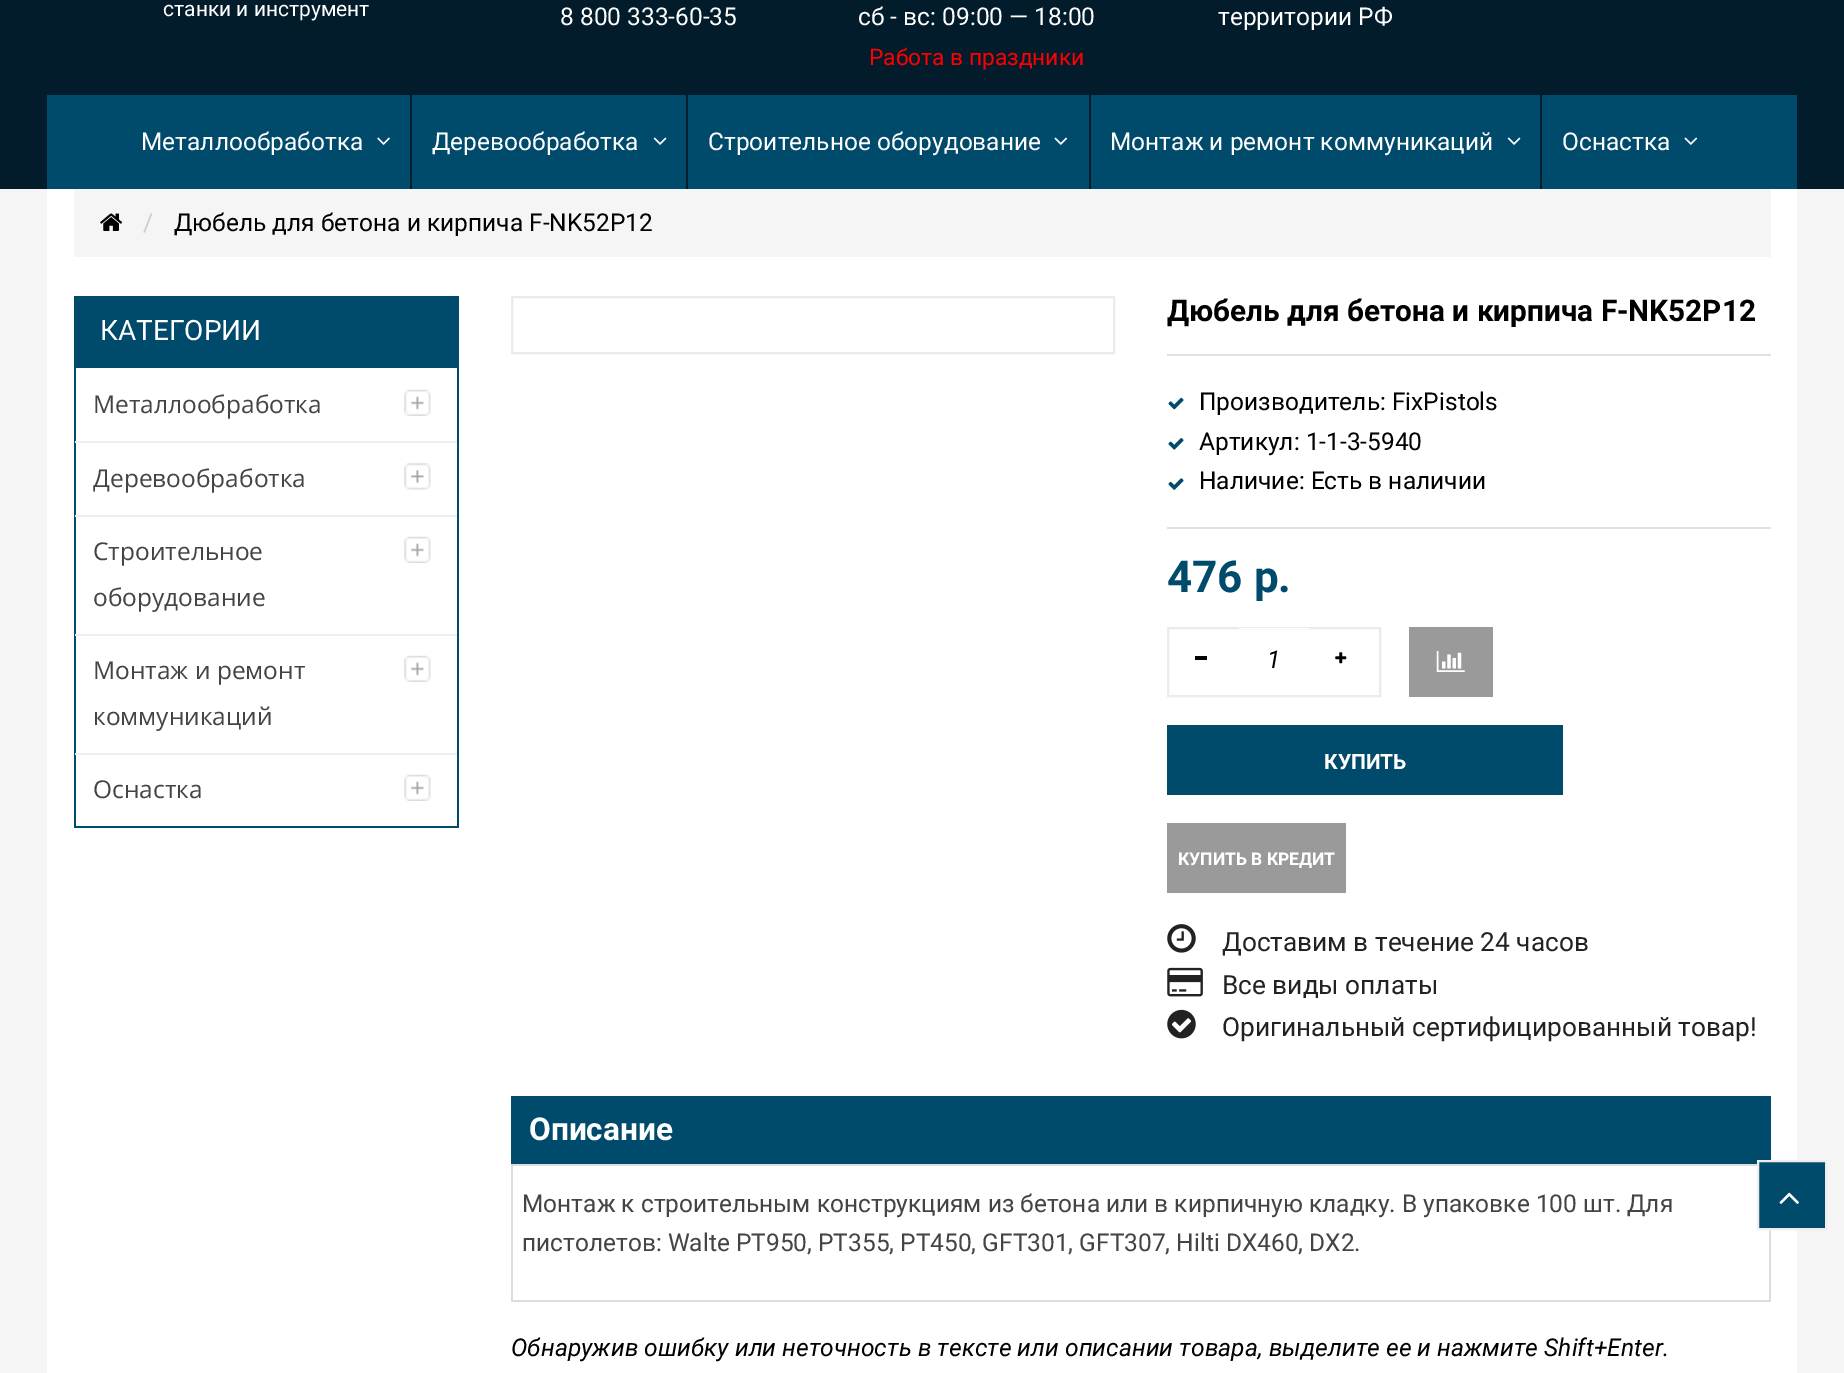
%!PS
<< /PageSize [1844 1373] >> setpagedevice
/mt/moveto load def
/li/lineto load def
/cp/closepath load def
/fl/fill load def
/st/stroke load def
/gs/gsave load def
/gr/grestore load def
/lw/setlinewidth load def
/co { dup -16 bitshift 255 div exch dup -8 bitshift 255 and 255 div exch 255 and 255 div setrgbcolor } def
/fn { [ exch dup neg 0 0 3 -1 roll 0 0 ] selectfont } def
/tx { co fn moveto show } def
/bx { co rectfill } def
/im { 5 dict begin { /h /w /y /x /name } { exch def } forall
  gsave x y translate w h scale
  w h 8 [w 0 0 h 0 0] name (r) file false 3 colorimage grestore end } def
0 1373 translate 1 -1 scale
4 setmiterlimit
0 0 1844 1373 16#F5F5F5 bx
0 0 1844 189 16#021C2C bx
47 95 1750 94 16#004A6B bx
410 95 2 94 16#021C2C bx
(media/1.raw) 377 137 13 8 im
686 95 2 94 16#021C2C bx
(media/2.raw) 653 137 14 8 im
1089 95 2 94 16#021C2C bx
(media/3.raw) 1054 137 14 8 im
1540 95 2 94 16#021C2C bx
(media/2.raw) 1507 137 14 8 im
(media/3.raw) 1684 137 14 8 im
47 189 1750 1184 16#FFFFFF bx
74 189 1697 68 16#F5F5F5 bx
(media/4.raw) 100 213 23 18 im
74 296 385 72 16#004A6B bx
457 368 2 460 16#004A6B bx
74 826 385 2 16#004A6B bx
74 368 2 460 16#004A6B bx
75 441 382 2 16#EEEEEE bx
(media/5.raw) 404 389 27 27 im
75 515 382 2 16#EEEEEE bx
(media/6.raw) 404 463 27 27 im
75 634 382 2 16#EEEEEE bx
(media/5.raw) 404 536 27 27 im
75 753 382 2 16#EEEEEE bx
(media/5.raw) 404 655 27 27 im
(media/5.raw) 404 774 27 27 im
16#EBEBEB co
2 lw
512 297 602 56 rectstroke
1167 354 604 2 16#E1E1E1 bx
(media/7.raw) 1168 397 16 13 im
(media/8.raw) 1168 438 16 12 im
(media/9.raw) 1168 478 16 12 im
1167 527 604 2 16#E1E1E1 bx
16#EBEBEB co
1168 628 212 68 rectstroke
1195 656 12 4 16#000000 bx
1239 628 70 1 16#FFFFFF bx
(media/10.raw) 1335 652 12 12 im
1409 627 84 70 16#9A9A9A bx
(media/11.raw) 1436 651 29 21 im
1167 725 396 70 16#004A6B bx
1167 823 179 70 16#9A9A9A bx
(media/12.raw) 1167 924 29 29 im
(media/13.raw) 1167 967 36 30 im
(media/14.raw) 1167 1009 29 30 im
511 1096 1260 68 16#004A6B bx
511 1164 1246 2 16#DDDDDD bx
1769 1230 2 72 16#DDDDDD bx
511 1300 1260 2 16#DDDDDD bx
511 1164 2 138 16#DDDDDD bx
16#004A6B co
1758 1161 mt 1826 1161 li 1826 1229 li 1758 1229 li cp gs fl gr
16#EEEEEE co
st
(media/15.raw) 1779 1192 20 12 im
(станки и инструмент) 163 16 /Roboto-Regular 21 16#FFFFFF tx
(8 800 333-60-35) 560 25 /Roboto-Regular 24.5 16#FFFFFF tx
(сб - вс: 09:00 — 18:00) 858 25 /Roboto-Regular 24.5 16#FFFFFF tx
(Работа в праздники) 869 65 /Roboto-Regular 22.75 16#FF0000 tx
(территории РФ) 1218 25 /Roboto-Regular 24.5 16#FFFFFF tx
(Металлообработка) 141 150 /Roboto-Regular 24.5 16#FFFFFF tx
(Деревообработка) 432 150 /Roboto-Regular 24.5 16#FFFFFF tx
(Строительное оборудование) 708 150 /Roboto-Regular 24.5 16#FFFFFF tx
(Монтаж и ремонт коммуникаций) 1110 150 /Roboto-Regular 24.5 16#FFFFFF tx
(Оснастка) 1562 150 /Roboto-Regular 24.5 16#FFFFFF tx
(/) 143 231 /Roboto-Regular 24.5 16#CCCCCC tx
(Дюбель для бетона и кирпича F-NK52Р12) 174 231 /Roboto-Regular 24.5 16#000000 tx
(КАТЕГОРИИ) 100 340 /Roboto-Regular 28 16#FFFFFF tx
(Металлообработка) 93 413 /OpenSans-Regular 24.5 16#444444 tx
(Деревообработка) 93 487 /OpenSans-Regular 24.5 16#444444 tx
(Строительное) 93 560 /OpenSans-Regular 24.5 16#444444 tx
(оборудование) 93 606 /OpenSans-Regular 24.5 16#444444 tx
(Монтаж и ремонт) 93 679 /OpenSans-Regular 24.5 16#444444 tx
(коммуникаций) 93 725 /OpenSans-Regular 24.5 16#444444 tx
(Оснастка) 93 798 /OpenSans-Regular 24.5 16#444444 tx
(Дюбель для бетона и кирпича F-NK52Р12) 1167 321 /Roboto-Bold 29.75 16#000000 tx
(Производитель: FixPistols) 1199 410 /Roboto-Regular 24.5 16#000000 tx
(Артикул: 1-1-3-5940) 1199 450 /Roboto-Regular 24.5 16#000000 tx
(Наличие: Есть в наличии) 1199 489 /Roboto-Regular 24.5 16#000000 tx
(476 р.) 1167 592 /Roboto-Bold 44 16#004A6B tx
(1) 1267 668 /Roboto-Italic 24.5 16#000000 tx
(КУПИТЬ) 1324 769 /Roboto-Bold 21 16#FFFFFF tx
(КУПИТЬ В КРЕДИТ) 1178 865 /Roboto-Bold 17.5 16#FFFFFF tx
(Доставим в течение 24 часов) 1222 951 /Roboto-Regular 26.25 16#222222 tx
(Все виды оплаты) 1222 994 /Roboto-Regular 26.25 16#222222 tx
(Оригинальный сертифицированный товар!) 1222 1036 /Roboto-Regular 26.25 16#222222 tx
(Описание) 529 1140 /Roboto-Bold 31.5 16#FFFFFF tx
(Монтаж к строительным конструкциям из бетона или в кирпичную кладку. В упаковке 100 шт. Для) 522 1212 /Roboto-Regular 24.5 16#444444 tx
(пистолетов: Walte PT950, PT355, PT450, GFT301, GFT307, Hilti DX460, DX2.) 522 1251 /Roboto-Regular 24.5 16#444444 tx
(Обнаружив ошибку или неточность в тексте или описании товара, выделите ее и нажмите Shift+Enter.) 511 1356 /Roboto-Italic 24.5 16#000000 tx
showpage
